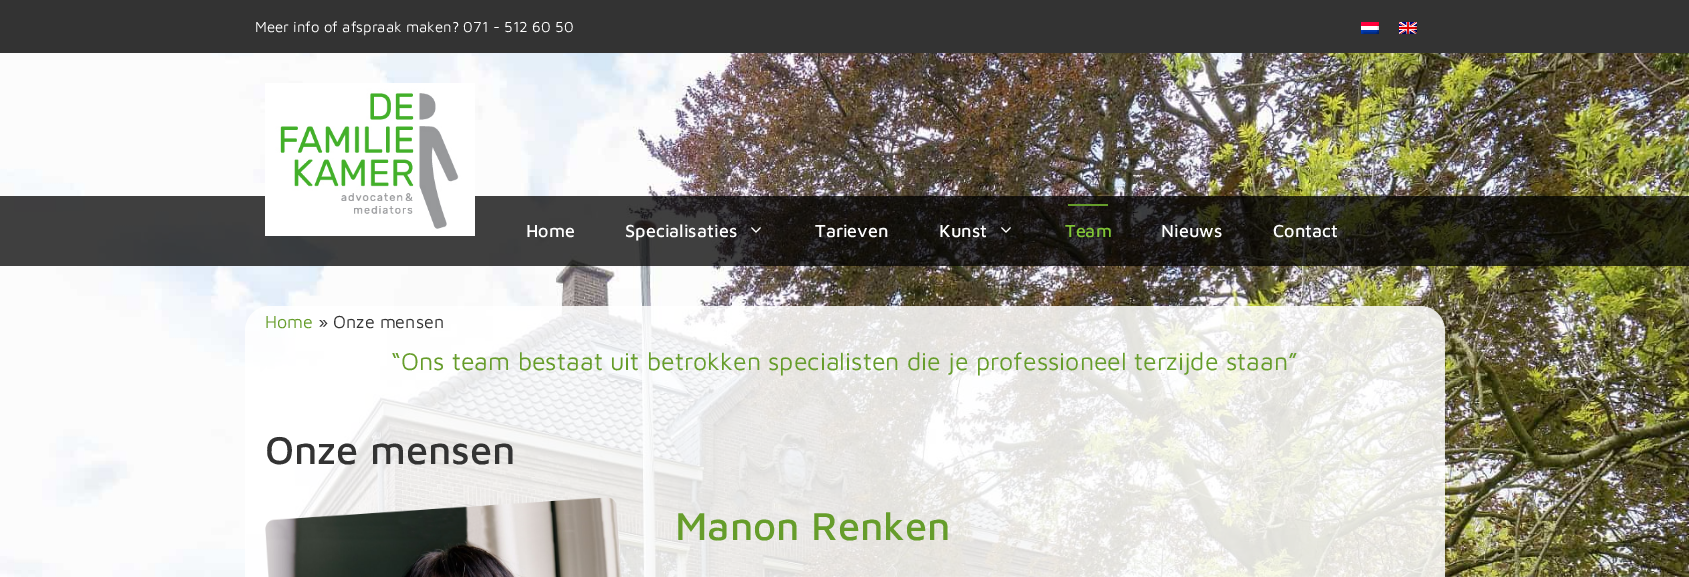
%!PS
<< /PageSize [1689 577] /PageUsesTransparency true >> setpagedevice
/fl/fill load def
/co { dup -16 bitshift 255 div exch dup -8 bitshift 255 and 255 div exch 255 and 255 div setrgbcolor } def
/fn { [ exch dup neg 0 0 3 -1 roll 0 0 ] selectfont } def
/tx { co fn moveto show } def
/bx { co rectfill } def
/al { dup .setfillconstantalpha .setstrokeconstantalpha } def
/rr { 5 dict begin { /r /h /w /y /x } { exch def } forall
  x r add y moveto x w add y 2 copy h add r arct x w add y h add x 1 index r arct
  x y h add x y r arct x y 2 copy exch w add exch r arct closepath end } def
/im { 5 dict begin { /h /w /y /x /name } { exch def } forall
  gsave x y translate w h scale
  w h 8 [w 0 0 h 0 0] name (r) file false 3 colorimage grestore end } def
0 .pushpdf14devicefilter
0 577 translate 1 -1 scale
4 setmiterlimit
0 0 1689 577 16#FFFFFF bx
(media/1.raw) 0 53 1689 524 im
0 0 1689 53 16#333333 bx
(media/2.raw) 1361 22 18 12 im
(media/3.raw) 1399 22 18 12 im
0.75 al
0 196 1689 70 16#000000 bx
1 al
(media/4.raw) 265 83 210 153 im
(media/5.raw) 751 227 10 6 im
(media/6.raw) 1001 227 10 6 im
1068 204 40 2 16#669D2B bx
0.85 al
16#FFFFFF co
245 306 1200 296 25 rr fl
1 al
(media/7.raw) 265 497 357 80 im
(Meer info of afspraak maken? 071 - 512 60 50) 255 32 /MavenPro-Regular 15 16#FFFFFF tx
(Home) 526 237 /MavenPro-Medium 18 16#FFFFFF tx
(Specialisaties) 625 237 /MavenPro-Medium 18 16#FFFFFF tx
(Tarieven) 815 237 /MavenPro-Medium 18 16#FFFFFF tx
(Kunst) 939 237 /MavenPro-Medium 18 16#FFFFFF tx
(Team) 1065 237 /MavenPro-Medium 18 16#80C536 tx
(Nieuws) 1161 237 /MavenPro-Medium 18 16#FFFFFF tx
(Contact) 1273 237 /MavenPro-Medium 18 16#FFFFFF tx
(Home) 265 328 /MavenPro-Regular 18 16#669D2B tx
(» Onze mensen) 318 328 /MavenPro-Regular 18 16#333333 tx
(“Ons team bestaat uit betrokken specialisten die je professioneel terzijde staan”) 391 370 /MavenPro-Regular 25 16#669D2B tx
(Onze mensen) 265 464 /MavenPro-Medium 40 16#333333 tx
(Manon Renken) 675 540 /MavenPro-Medium 40 16#669D2B tx
.poppdf14devicefilter showpage
